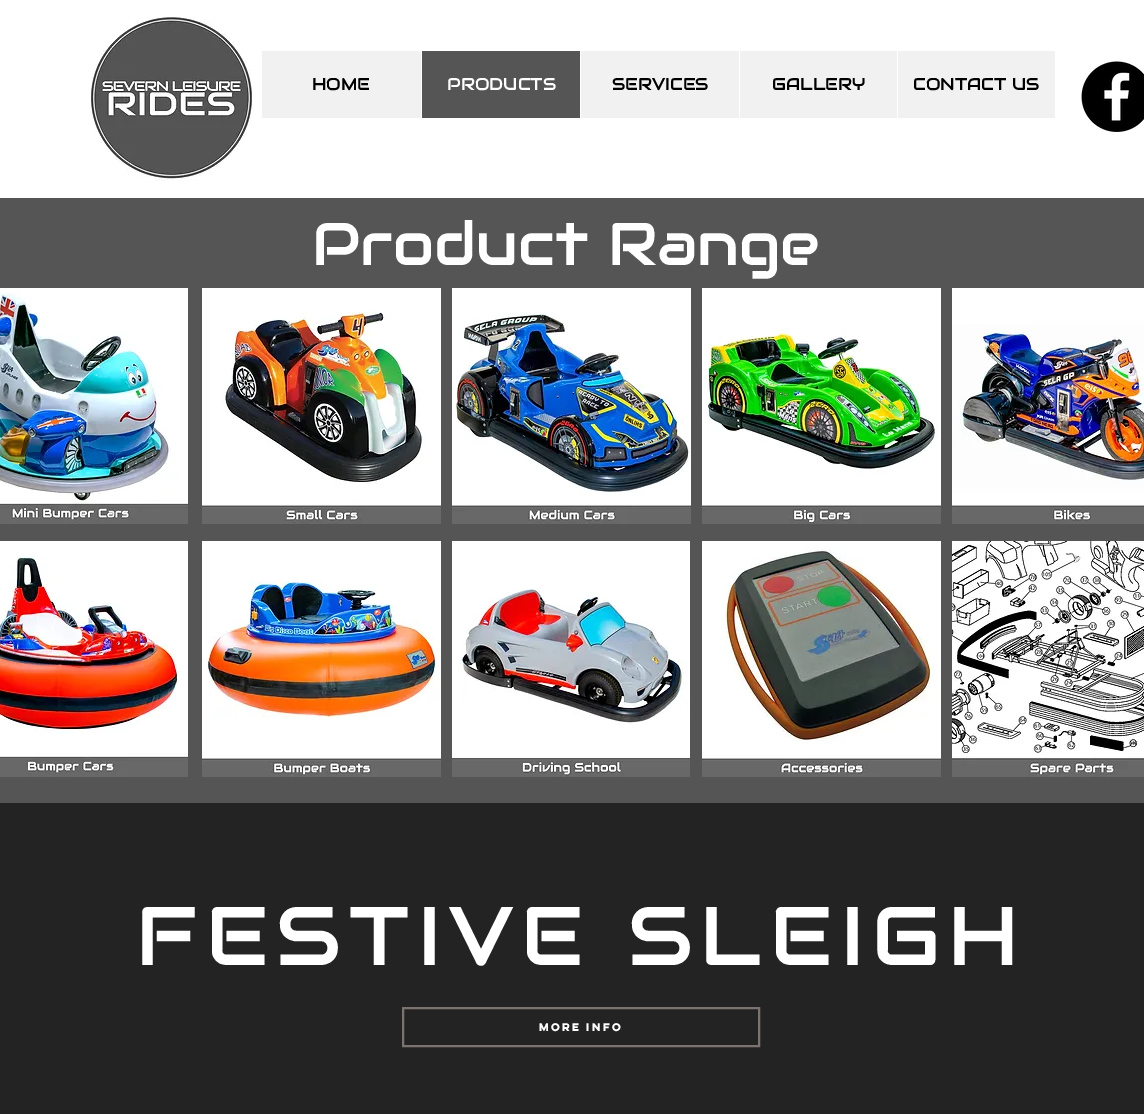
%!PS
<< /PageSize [1144 1114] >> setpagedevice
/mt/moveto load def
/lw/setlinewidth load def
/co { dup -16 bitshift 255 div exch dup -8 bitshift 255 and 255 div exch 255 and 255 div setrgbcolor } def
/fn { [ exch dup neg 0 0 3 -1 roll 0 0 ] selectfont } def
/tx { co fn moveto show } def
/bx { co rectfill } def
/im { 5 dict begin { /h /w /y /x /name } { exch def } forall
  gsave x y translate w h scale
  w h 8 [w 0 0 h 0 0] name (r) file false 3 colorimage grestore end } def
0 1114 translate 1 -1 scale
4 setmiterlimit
0 0 1144 1114 16#FFFFFF bx
(media/1.raw) 91 17 163 164 im
262 51 793 67 16#F1F1F1 bx
422 51 158 67 16#555555 bx
421 51 1 67 16#FFFFFF bx
580 51 1 67 16#FFFFFF bx
739 51 1 67 16#FFFFFF bx
897 51 1 67 16#FFFFFF bx
(media/2.raw) 1081 61 63 71 im
0 198 1144 605 16#555555 bx
(media/3.raw) 0 288 188 236 im
(media/4.raw) 202 288 239 236 im
(media/5.raw) 452 288 239 236 im
(media/6.raw) 702 288 239 236 im
(media/7.raw) 952 288 192 236 im
(media/8.raw) 0 541 188 236 im
(media/9.raw) 202 541 239 236 im
(media/10.raw) 452 541 238 236 im
(media/11.raw) 702 541 239 236 im
(media/12.raw) 952 541 192 236 im
0 803 1144 311 16#242323 bx
16#7B736F co
2 lw
403 1008 356 38 rectstroke
(HOME) 312 90 /Audiowide-Regular 17 16#000000 tx
(PRODUCTS) 447 90 /Audiowide-Regular 17 16#FFFFFF tx
(SERVICES) 612 90 /Audiowide-Regular 17 16#000000 tx
(GALLERY) 772 90 /Audiowide-Regular 17 16#000000 tx
(CONTACT US) 913 90 /Audiowide-Regular 17 16#000000 tx
(Product Range) 312 265 /Audiowide-Regular 60 16#FFFFFF tx
/Audiowide-Regular 83 fn
136 965 mt 8.25 0 (FESTIVE SLEIGH) ashow
(more info) 539 1031 /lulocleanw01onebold-Bold 10 16#FFFFFF tx
showpage
